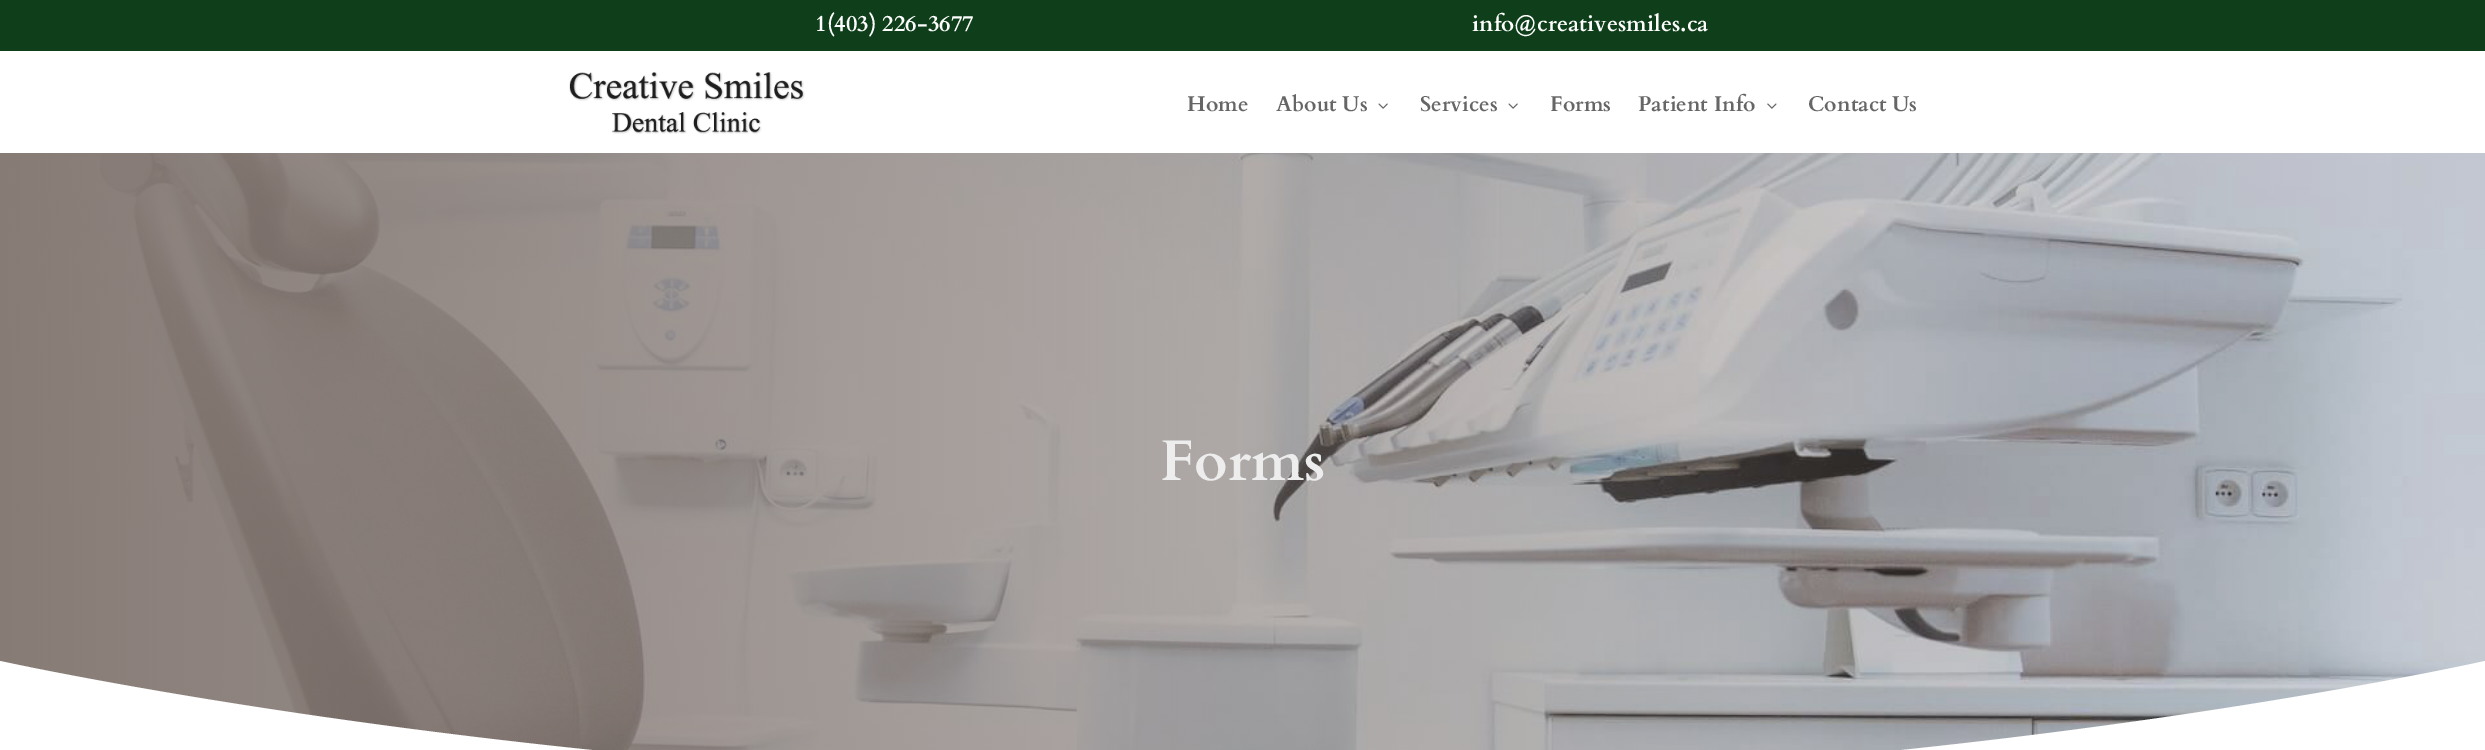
%!PS
<< /PageSize [2485 750] >> setpagedevice
/mt/moveto load def
/li/lineto load def
/ct/curveto load def
/cp/closepath load def
/fl/fill load def
/co { dup -16 bitshift 255 div exch dup -8 bitshift 255 and 255 div exch 255 and 255 div setrgbcolor } def
/fn { [ exch dup neg 0 0 3 -1 roll 0 0 ] selectfont } def
/tx { co fn moveto show } def
/bx { co rectfill } def
/im { 5 dict begin { /h /w /y /x /name } { exch def } forall
  gsave x y translate w h scale
  w h 8 [w 0 0 h 0 0] name (r) file false 3 colorimage grestore end } def
0 750 translate 1 -1 scale
4 setmiterlimit
0 0 2485 750 16#FFFFFF bx
0 0 2485 51 16#0F3F1A bx
(media/1.raw) 569 72 236 62 im
(media/2.raw) 1378 103 10 6 im
(media/2.raw) 1508 103 10 6 im
(media/3.raw) 1767 103 10 6 im
(media/4.raw) 0 153 2485 597 im
16#FFFFFF co
2485 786 mt 2485 661 li 2485 661 1929 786 1242 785 ct 556 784 0 661 0 661 ct 0 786 li cp fl
(1\(403\) 226-3677) 815 31 /Cardo-Bold 22.5 16#FFFFFF tx
(info@creativesmiles.ca) 1472 31 /Cardo-Bold 22.5 16#FFFFFF tx
(Home) 1187 111 /Cardo-Bold 21.25 16#666666 tx
(About Us) 1276 111 /Cardo-Bold 21.25 16#666666 tx
(Services) 1420 111 /Cardo-Bold 21.25 16#666666 tx
(Forms) 1550 111 /Cardo-Bold 21.25 16#666666 tx
(Patient Info) 1638 111 /Cardo-Bold 21.25 16#666666 tx
(Contact Us) 1808 111 /Cardo-Bold 21.25 16#666666 tx
(Forms) 1160 480 /Cardo-Bold 57.5 16#EDEDED tx
showpage
